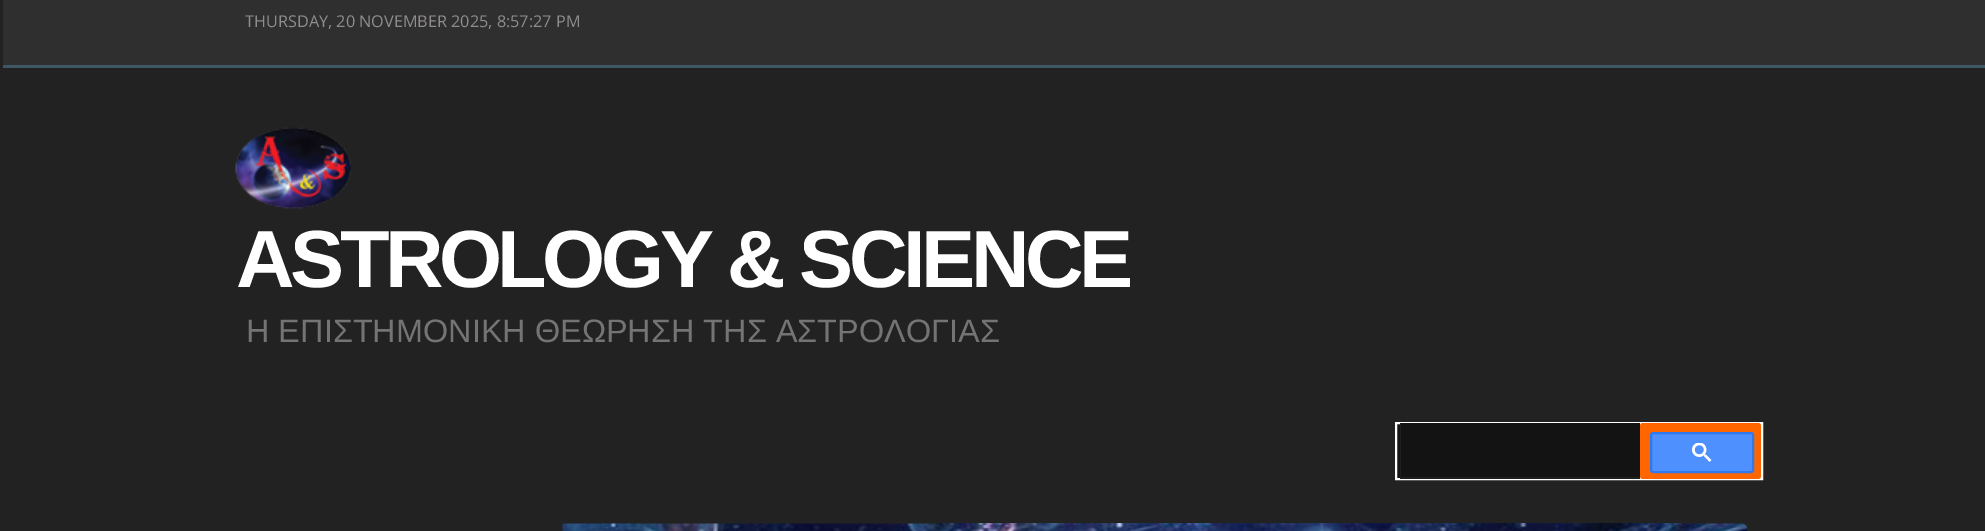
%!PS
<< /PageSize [1985 531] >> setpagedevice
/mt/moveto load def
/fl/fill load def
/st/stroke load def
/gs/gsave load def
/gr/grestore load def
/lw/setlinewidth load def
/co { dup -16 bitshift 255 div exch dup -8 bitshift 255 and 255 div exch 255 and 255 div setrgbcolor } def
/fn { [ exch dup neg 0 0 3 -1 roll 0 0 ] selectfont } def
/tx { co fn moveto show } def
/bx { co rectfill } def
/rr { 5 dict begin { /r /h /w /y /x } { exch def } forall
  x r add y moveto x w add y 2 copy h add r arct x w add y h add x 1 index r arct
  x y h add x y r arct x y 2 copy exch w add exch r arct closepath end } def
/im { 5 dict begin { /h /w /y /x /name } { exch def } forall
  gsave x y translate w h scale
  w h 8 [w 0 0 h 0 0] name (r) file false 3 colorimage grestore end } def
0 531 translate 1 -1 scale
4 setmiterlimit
0 0 1985 531 16#222222 bx
3 0 1982 65 16#2F2F2F bx
3 65 1982 3 16#3F5765 bx
(media/1.raw) 235 127 116 82 im
1397 424 3 54 16#131313 bx
16#FFFFFF co
2 lw
1396 423 366 56 rectstroke
1640 423 121 56 16#ECECEC bx
1400 423 240 56 16#1F1F1F bx
1401 423 239 54 16#131313 bx
16#FF6600 co
1640 423 121 56 3 rr fl
16#4D90FE co
1651 433 102 39 2 rr gs fl gr
16#3079ED co
st
(media/2.raw) 1692 443 20 19 im
(media/3.raw) 562 523 1186 8 im
(THURSDAY, 20 NOVEMBER 2025, 8:57:27 PM) 245 27 /OpenSans-Regular 16.25 16#8F8C8C tx
/LiberationSans-Bold 81.1 fn
16#FFFFFF co
236 287 mt -4.5 0 (ASTROLOGY & SCIENCE) ashow
(Η ΕΠΙΣΤΗΜΟΝΙΚΗ ΘΕΩΡΗΣΗ ΤΗΣ ΑΣΤΡΟΛΟΓΙΑΣ) 246 342 /LiberationSans-Regular 32.45 16#747474 tx
showpage
